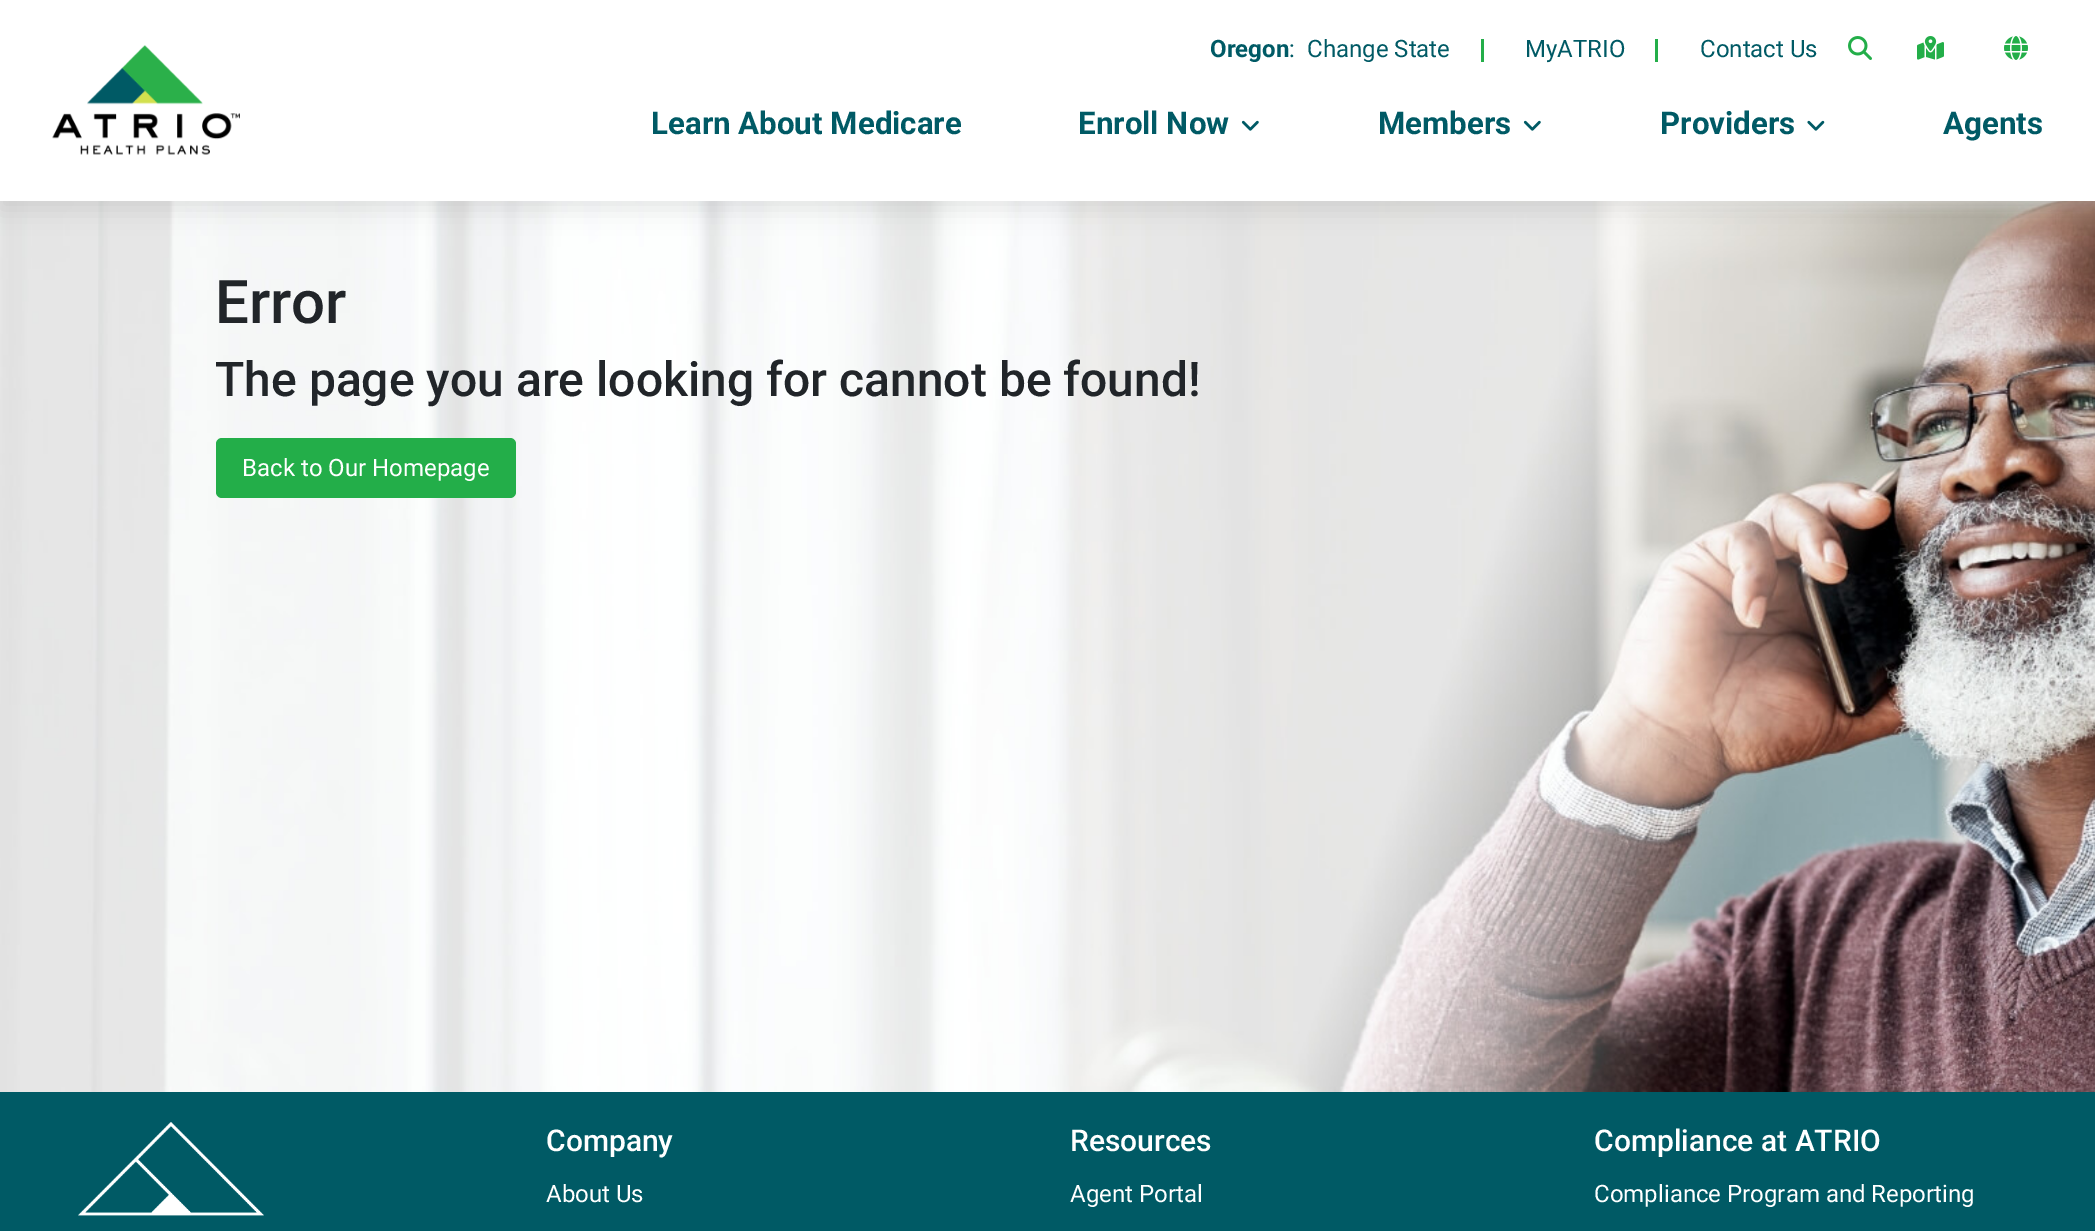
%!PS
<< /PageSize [2095 1231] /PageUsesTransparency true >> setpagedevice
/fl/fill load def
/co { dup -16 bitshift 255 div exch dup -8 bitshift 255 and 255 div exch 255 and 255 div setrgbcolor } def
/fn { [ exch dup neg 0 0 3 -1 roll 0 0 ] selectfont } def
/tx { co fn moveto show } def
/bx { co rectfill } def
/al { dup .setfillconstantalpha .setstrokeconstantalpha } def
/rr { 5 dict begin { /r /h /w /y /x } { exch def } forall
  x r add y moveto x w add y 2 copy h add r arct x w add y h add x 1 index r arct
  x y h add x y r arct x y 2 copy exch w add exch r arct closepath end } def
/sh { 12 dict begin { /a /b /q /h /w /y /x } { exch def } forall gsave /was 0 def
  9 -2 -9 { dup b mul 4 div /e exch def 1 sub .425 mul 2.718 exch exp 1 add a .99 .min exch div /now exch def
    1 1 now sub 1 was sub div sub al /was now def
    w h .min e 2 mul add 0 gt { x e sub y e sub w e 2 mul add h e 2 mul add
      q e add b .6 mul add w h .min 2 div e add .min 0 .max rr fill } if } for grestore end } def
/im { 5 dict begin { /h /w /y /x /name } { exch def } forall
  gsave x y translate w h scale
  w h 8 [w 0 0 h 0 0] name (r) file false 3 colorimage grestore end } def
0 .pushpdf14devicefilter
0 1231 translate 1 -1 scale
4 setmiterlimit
0 0 2095 1231 16#005A65 bx
(media/7.raw) 0 201 2095 891 im
16#000000 co
0 8 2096 201 0 12 .1 sh
0 0 2095 201 16#FFFFFF bx
(media/1.raw) 52 45 188 110 im
1481 39 3 23 16#23AE49 bx
1655 39 3 23 16#23AE49 bx
(media/2.raw) 1848 36 24 24 im
(media/3.raw) 1917 36 27 24 im
(media/4.raw) 2004 36 24 24 im
(media/5.raw) 1241 120 18 11 im
(media/5.raw) 1523 120 18 11 im
(media/6.raw) 1807 120 18 11 im
216 438 300 60 6 rr fl
(media/8.raw) 78 1122 186 94 im
(Oregon) 1210 57 /Roboto-Bold 24 16#005A65 tx
(:) 1289 57 /Roboto-Regular 24 16#005A65 tx
(Change State) 1307 57 /Roboto-Regular 24 16#005A65 tx
(MyATRIO) 1525 57 /Roboto-Regular 24 16#005A65 tx
(Contact Us) 1700 57 /Roboto-Regular 24 16#005A65 tx
(Learn About Medicare) 651 134 /Roboto-Bold 31.25 16#005A65 tx
(Enroll Now) 1078 134 /Roboto-Bold 31.25 16#005A65 tx
(Members) 1378 134 /Roboto-Bold 31.25 16#005A65 tx
(Providers) 1660 134 /Roboto-Bold 31.25 16#005A65 tx
(Agents) 1943 134 /Roboto-Bold 31.25 16#005A65 tx
(Error) 215 323 /Roboto-Medium 60 16#212529 tx
(The page you are looking for cannot be found!) 215 396 /Roboto-Medium 48 16#212529 tx
(Back to Our Homepage) 242 476 /Roboto-Regular 24 16#FFFFFF tx
(Company) 546 1151 /Roboto-Medium 30 16#FFFFFF tx
(About Us) 546 1202 /Roboto-Regular 24 16#FFFFFF tx
(Resources) 1070 1151 /Roboto-Medium 30 16#FFFFFF tx
(Agent Portal) 1070 1202 /Roboto-Regular 24 16#FFFFFF tx
(Compliance at ATRIO) 1594 1151 /Roboto-Medium 30 16#FFFFFF tx
(Compliance Program and Reporting) 1594 1202 /Roboto-Regular 24 16#FFFFFF tx
.poppdf14devicefilter showpage
